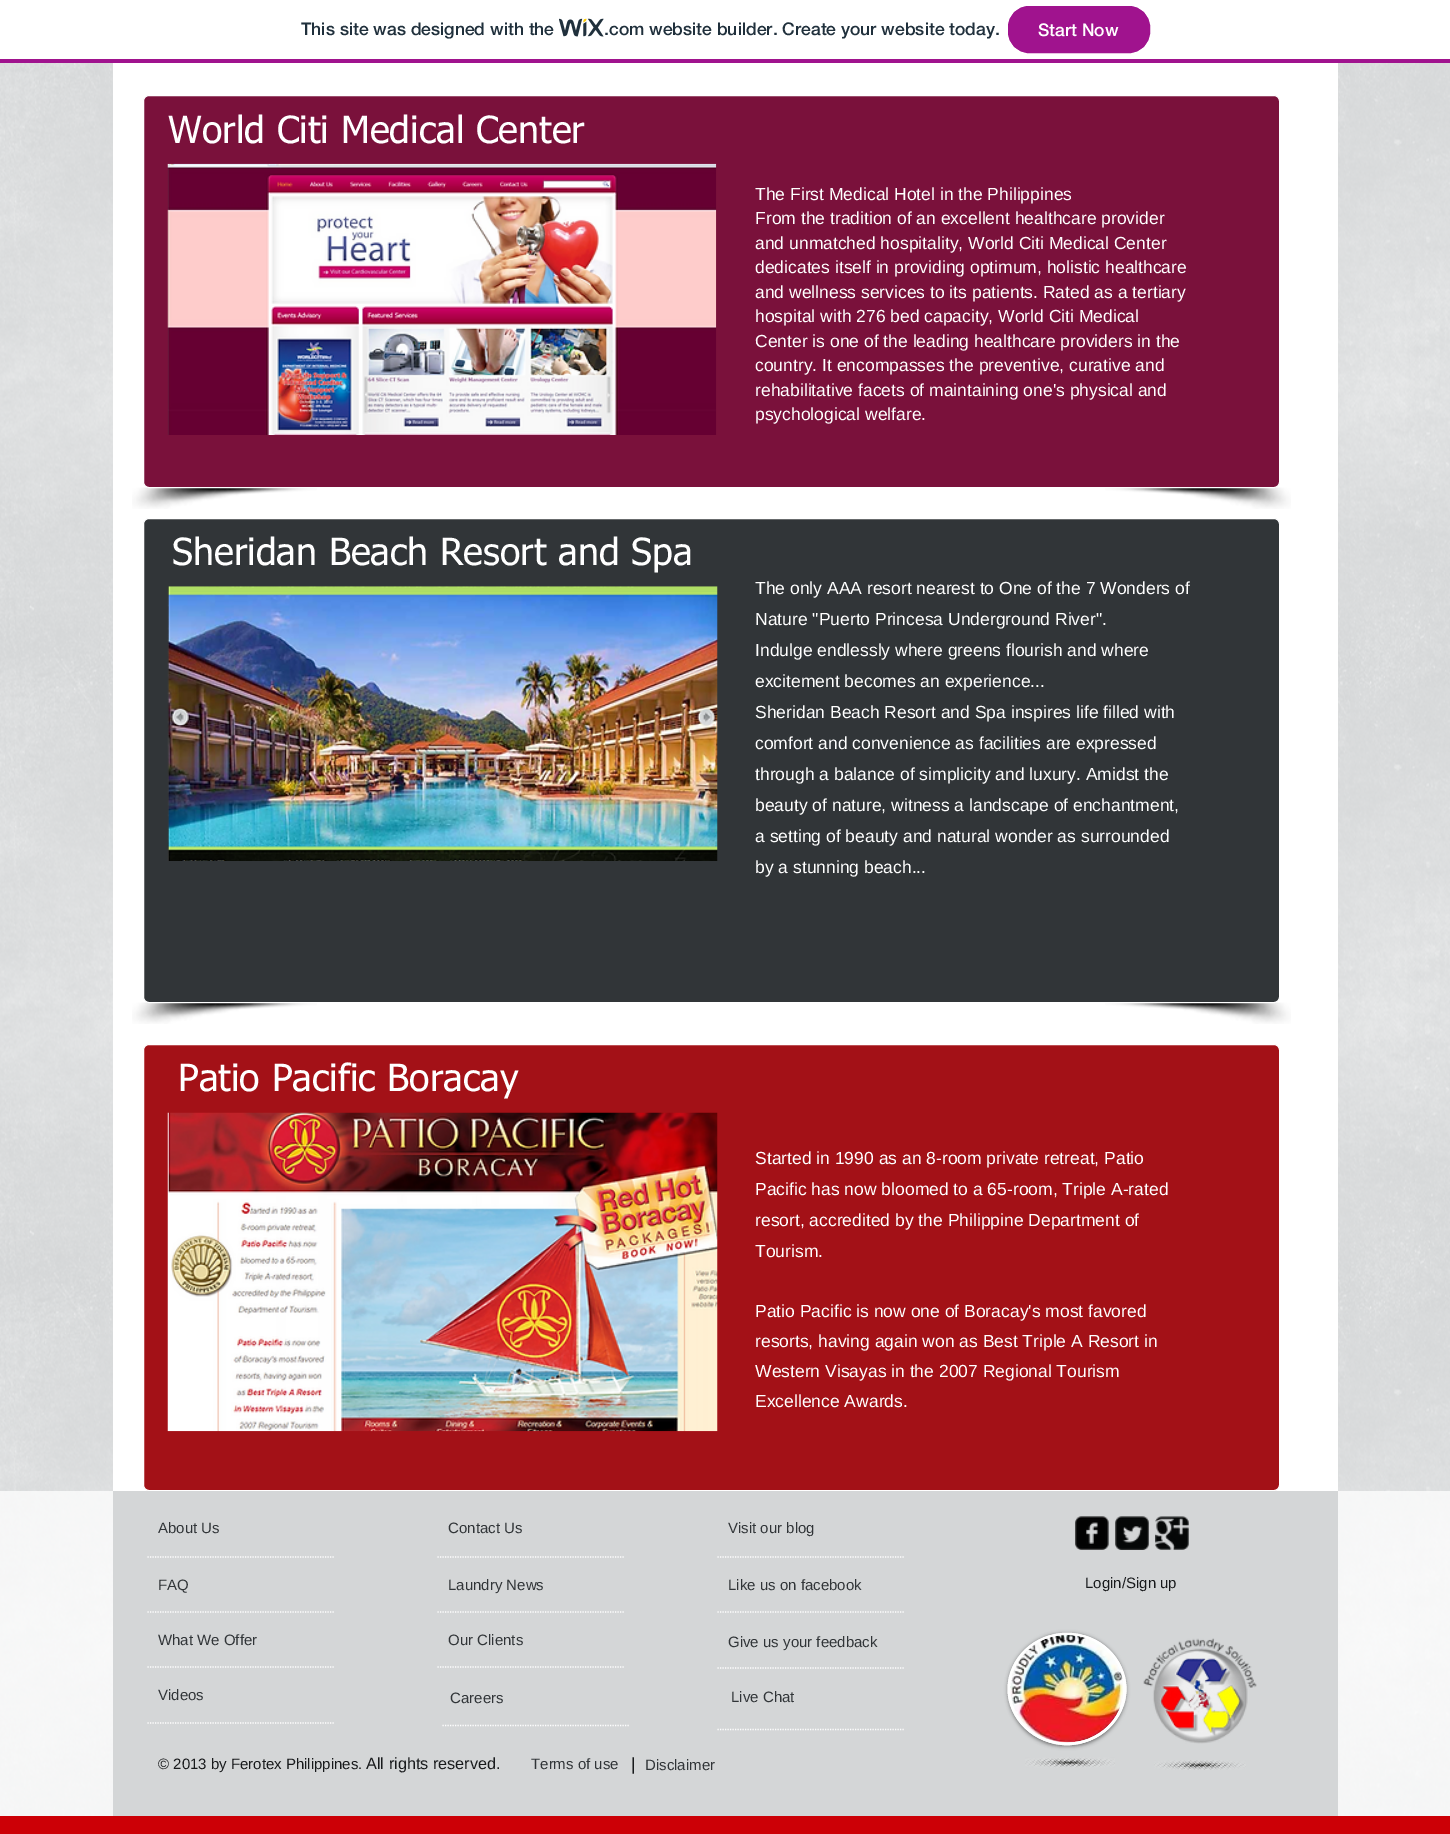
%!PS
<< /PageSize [1450 1834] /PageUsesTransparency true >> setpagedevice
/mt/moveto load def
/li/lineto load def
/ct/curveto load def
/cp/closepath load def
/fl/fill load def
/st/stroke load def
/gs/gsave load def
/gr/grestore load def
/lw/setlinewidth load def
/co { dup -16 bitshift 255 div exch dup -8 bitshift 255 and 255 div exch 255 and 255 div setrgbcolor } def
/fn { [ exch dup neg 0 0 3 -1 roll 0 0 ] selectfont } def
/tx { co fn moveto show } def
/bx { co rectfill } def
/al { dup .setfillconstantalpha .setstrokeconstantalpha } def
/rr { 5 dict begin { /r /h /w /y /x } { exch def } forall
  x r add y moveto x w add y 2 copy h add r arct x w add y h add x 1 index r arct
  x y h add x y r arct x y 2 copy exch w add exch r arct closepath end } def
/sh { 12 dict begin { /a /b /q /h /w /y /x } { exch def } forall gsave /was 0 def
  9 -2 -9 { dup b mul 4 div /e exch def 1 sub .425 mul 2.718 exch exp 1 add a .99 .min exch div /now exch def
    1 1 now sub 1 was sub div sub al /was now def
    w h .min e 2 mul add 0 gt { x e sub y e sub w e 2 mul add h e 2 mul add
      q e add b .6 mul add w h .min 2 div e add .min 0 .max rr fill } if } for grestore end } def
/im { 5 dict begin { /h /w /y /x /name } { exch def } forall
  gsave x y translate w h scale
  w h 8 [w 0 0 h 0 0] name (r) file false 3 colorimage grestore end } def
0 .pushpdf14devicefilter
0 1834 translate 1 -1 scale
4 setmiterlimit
0 0 1450 1834 16#D4D6D7 bx
0 0 1450 59 16#FFFFFF bx
0 59 1450 4 16#A0138E bx
(media/1.raw) 559 18 45 19 im
1008.5 6.5 141 46 20.5 rr gs fl gr
st
(media/2.raw) 0 63 1450 1753 im
113 63 1225 1428 16#FFFFFF bx
(media/4.raw) 132 487 185 22 im
(media/5.raw) 1105 487 186 22 im
16#7A113B co
143.5 95.5 1136 392 5.5 rr gs fl gr
16#FFFFFF co
st
(media/3.raw) 167 163 550 272 im
(media/4.raw) 132 1002 185 22 im
(media/5.raw) 1105 1002 186 22 im
16#313538 co
143.5 518.5 1136 484 5.5 rr gs fl gr
16#FFFFFF co
st
(media/6.raw) 167 586 551 275 im
16#A31117 co
143.5 1044.5 1136 446 5.5 rr gs fl gr
16#FFFFFF co
st
(media/7.raw) 167 1112 551 320 im
0.75 al
0 1491 1450 325 16#FFFFFF bx
1 al
0 1816 1450 18 16#CC0006 bx
113 1491 1225 325 16#D4D6D7 bx
(media/8.raw) 1075 1516 34 34 im
(media/9.raw) 1115 1516 34 34 im
(media/10.raw) 1155 1516 34 34 im
16#FFFFFF co
1.2 lw
[1.25 1.25] 0 setdash
147.5 1557 mt 335 1557 li st
437.5 1557 mt 625 1557 li st
717.5 1557 mt 905 1557 li st
147.5 1612 mt 335 1612 li st
437.5 1612 mt 625 1612 li st
717.5 1612 mt 905 1612 li st
16#000000 co
1008 1634 118 112 56 2 .5 sh
16#FFFFFF co
1067 1633 mt 1100 1633 1126.5 1658 1126.5 1689 ct 1126.5 1720 1100 1745 1067 1745 ct 1034 1745 1007.5 1720 1007.5 1689 ct 1007.5 1658 1034 1633 1067 1633 ct cp fl
2.5 lw
[] 0 setdash
1067 1634 mt 1099 1634 1125 1658.5 1125 1689 ct 1125 1719 1099 1744 1067 1744 ct 1035 1744 1009 1719 1009 1689 ct 1009 1658.5 1035 1634 1067 1634 ct cp st
(media/11.raw) 1010 1635 114 108 im
(media/12.raw) 1143 1638 114 106 im
1.2 lw
[1.25 1.25] 0 setdash
147.5 1667 mt 335 1667 li st
437.5 1667 mt 625 1667 li st
717.5 1668 mt 905 1668 li st
147.5 1723 mt 335 1723 li st
442.5 1725.5 mt 630 1725.5 li st
717.5 1729.5 mt 905 1729.5 li st
(media/13.raw) 1025 1757 90 11 im
(media/14.raw) 1154 1760 92 10 im
(This site was designed with the) 301 35 /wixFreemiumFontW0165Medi-Medium 17.5 16#20303C tx
(.com website builder. Create your website today.) 604 35 /wixFreemiumFontW0165Medi-Medium 17.5 16#20303C tx
(Start Now) 1038 36 /wixFreemiumFontW0165Medi-Medium 17.5 16#FFFFFF tx
(World Citi Medical Center) 168 143 /tahoma-Regular 37.5 16#FFFFFF tx
(The First Medical Hotel in the Philippines) 755 200 /LiberationSans-Regular 17.5 16#FFFFFF tx
(From the tradition of an excellent healthcare provider) 755 224 /LiberationSans-Regular 17.5 16#FFFFFF tx
(and unmatched hospitality, World Citi Medical Center) 755 249 /LiberationSans-Regular 17.5 16#FFFFFF tx
(dedicates itself in providing optimum, holistic healthcare) 755 273 /LiberationSans-Regular 17.5 16#FFFFFF tx
(and wellness services to its patients. Rated as a tertiary) 755 298 /LiberationSans-Regular 17.5 16#FFFFFF tx
(hospital with 276 bed capacity, World Citi Medical) 755 322 /LiberationSans-Regular 17.5 16#FFFFFF tx
(Center is one of the leading healthcare providers in the) 755 347 /LiberationSans-Regular 17.5 16#FFFFFF tx
(country. It encompasses the preventive, curative and) 755 371 /LiberationSans-Regular 17.5 16#FFFFFF tx
(rehabilitative facets of maintaining one's physical and) 755 396 /LiberationSans-Regular 17.5 16#FFFFFF tx
(psychological welfare.) 755 420 /LiberationSans-Regular 17.5 16#FFFFFF tx
(Sheridan Beach Resort and Spa) 172 565 /tahoma-Regular 37.5 16#FFFFFF tx
(The only AAA resort nearest to One of the 7 Wonders of) 755 594 /LiberationSans-Regular 17.5 16#FFFFFF tx
(Nature "Puerto Princesa Underground River".) 755 625 /LiberationSans-Regular 17.5 16#FFFFFF tx
(Indulge endlessly where greens flourish and where) 755 656 /LiberationSans-Regular 17.5 16#FFFFFF tx
(excitement becomes an experience...) 755 687 /LiberationSans-Regular 17.5 16#FFFFFF tx
(Sheridan Beach Resort and Spa inspires life filled with) 755 718 /LiberationSans-Regular 17.5 16#FFFFFF tx
(comfort and convenience as facilities are expressed) 755 749 /LiberationSans-Regular 17.5 16#FFFFFF tx
(through a balance of simplicity and luxury. Amidst the) 755 780 /LiberationSans-Regular 17.5 16#FFFFFF tx
(beauty of nature, witness a landscape of enchantment,) 755 811 /LiberationSans-Regular 17.5 16#FFFFFF tx
(a setting of beauty and natural wonder as surrounded) 755 842 /LiberationSans-Regular 17.5 16#FFFFFF tx
(by a stunning beach...) 755 873 /LiberationSans-Regular 17.5 16#FFFFFF tx
(Patio Pacific Boracay) 178 1091 /tahoma-Regular 37.5 16#FFFFFF tx
(Started in 1990 as an 8-room private retreat, Patio) 755 1164 /LiberationSans-Regular 17.5 16#FFFFFF tx
(Pacific has now bloomed to a 65-room, Triple A-rated) 755 1195 /LiberationSans-Regular 17.5 16#FFFFFF tx
(resort, accredited by the Philippine Department of) 755 1226 /LiberationSans-Regular 17.5 16#FFFFFF tx
(Tourism.) 755 1257 /LiberationSans-Regular 17.5 16#FFFFFF tx
(Patio Pacific is now one of Boracay's most favored) 755 1317 /LiberationSans-Regular 17.5 16#FFFFFF tx
(resorts, having again won as Best Triple A Resort in) 755 1347 /LiberationSans-Regular 17.5 16#FFFFFF tx
(Western Visayas in the 2007 Regional Tourism) 755 1377 /LiberationSans-Regular 17.5 16#FFFFFF tx
(Excellence Awards.) 755 1407 /LiberationSans-Regular 17.5 16#FFFFFF tx
(About Us) 158 1533 /LiberationSans-Regular 15 16#313538 tx
(Contact Us) 448 1533 /LiberationSans-Regular 15 16#313538 tx
(Visit our blog) 728 1533 /LiberationSans-Regular 15 16#313538 tx
(FAQ) 158 1590 /LiberationSans-Regular 15 16#313538 tx
(Laundry News) 448 1590 /LiberationSans-Regular 15 16#313538 tx
(Like us on facebook) 728 1590 /LiberationSans-Regular 15 16#313538 tx
(Login/Sign up) 1085 1588 /LiberationSans-Regular 15 16#181A1C tx
(What We Offer) 158 1645 /LiberationSans-Regular 15 16#313538 tx
(Our Clients) 448 1645 /LiberationSans-Regular 15 16#313538 tx
(Give us your feedback) 728 1647 /LiberationSans-Regular 15 16#313538 tx
(Videos) 158 1700 /LiberationSans-Regular 15 16#313538 tx
(Careers) 450 1703 /LiberationSans-Regular 15 16#313538 tx
(Live Chat) 731 1702 /LiberationSans-Regular 15 16#313538 tx
(© 2013 by Ferotex Philippines.) 158 1769 /LiberationSans-Regular 15 16#181A1C tx
(All rights reserved.) 366 1769 /LiberationSans-Regular 16.25 16#181A1C tx
(Terms of use) 531 1769 /LiberationSans-Regular 15 16#313538 tx
(|) 631 1770 /LiberationSans-Regular 17.5 16#181A1C tx
(Disclaimer) 645 1770 /LiberationSans-Regular 15 16#313538 tx
.poppdf14devicefilter showpage
